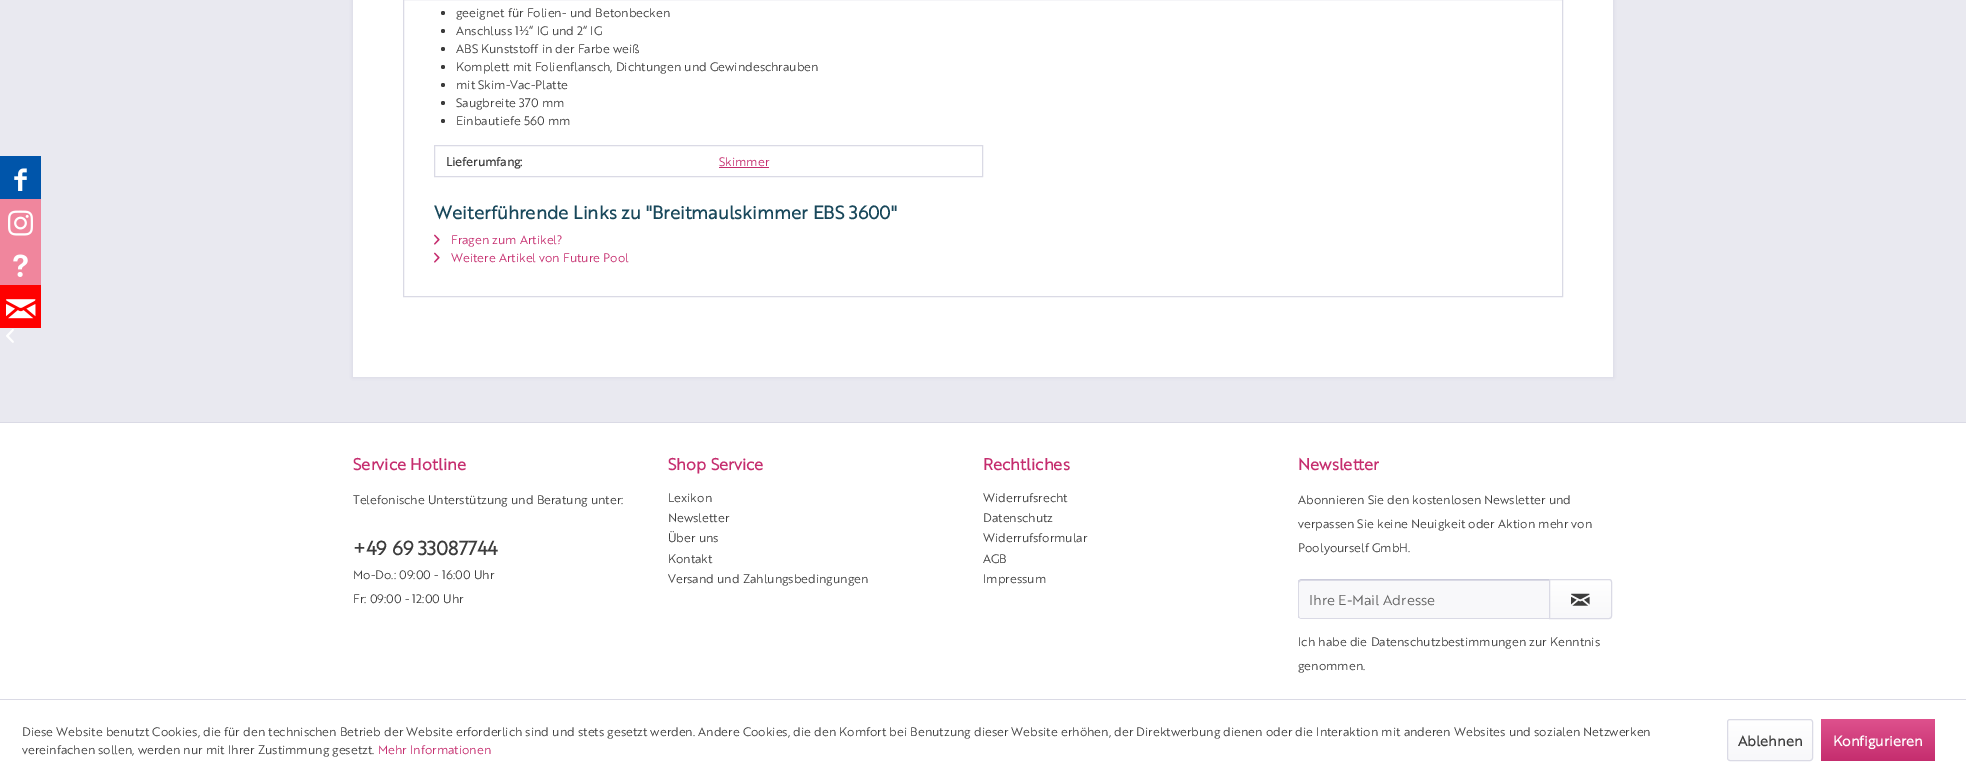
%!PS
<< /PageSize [1966 780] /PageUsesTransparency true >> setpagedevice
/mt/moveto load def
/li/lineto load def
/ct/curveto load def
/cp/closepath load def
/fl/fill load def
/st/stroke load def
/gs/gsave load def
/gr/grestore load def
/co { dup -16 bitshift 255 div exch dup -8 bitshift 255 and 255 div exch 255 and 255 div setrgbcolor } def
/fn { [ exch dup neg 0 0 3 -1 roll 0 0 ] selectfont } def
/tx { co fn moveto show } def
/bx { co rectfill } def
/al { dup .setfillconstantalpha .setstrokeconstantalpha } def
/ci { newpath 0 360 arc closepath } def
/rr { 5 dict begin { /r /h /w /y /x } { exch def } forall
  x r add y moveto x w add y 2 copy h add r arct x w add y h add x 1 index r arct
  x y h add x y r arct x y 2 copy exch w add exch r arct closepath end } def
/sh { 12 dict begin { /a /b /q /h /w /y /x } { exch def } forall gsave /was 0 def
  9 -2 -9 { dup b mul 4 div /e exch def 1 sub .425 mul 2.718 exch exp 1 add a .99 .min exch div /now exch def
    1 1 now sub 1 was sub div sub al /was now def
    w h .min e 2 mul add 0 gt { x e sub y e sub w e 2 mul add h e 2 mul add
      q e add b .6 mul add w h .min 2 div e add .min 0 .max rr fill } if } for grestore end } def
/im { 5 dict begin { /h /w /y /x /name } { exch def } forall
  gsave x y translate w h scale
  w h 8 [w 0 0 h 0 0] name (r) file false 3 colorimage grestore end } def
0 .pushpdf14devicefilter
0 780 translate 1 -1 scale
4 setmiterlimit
0 0 1966 780 16#E9E9F0 bx
0 156 41 43 16#0055AA bx
(media/1.raw) 14 168 13 23 im
0 199 41 86 16#F0869D bx
(media/2.raw) 8 210 25 26 im
(media/3.raw) 13 254 15 23 im
0 285 41 43 16#FF0000 bx
(media/4.raw) 6 299 30 20 im
(media/5.raw) 6 329 8 14 im
16#DADAE5 co
352 -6 1262 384 0 2 1 sh
353 0 1260 377 16#FFFFFF bx
16#DADAE5 co
403.5 -.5 1159 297 rectstroke
16#3C3C3C co
443 13 2 ci fl
443 31 2 ci fl
443 49 2 ci fl
443 67 2 ci fl
443 85 2 ci fl
443 103 2 ci fl
443 121 2 ci fl
16#DADAE5 co
434.5 145.5 548 31 rectstroke
719 167 50 1 16#C52D6E bx
(media/6.raw) 434 234 6 11 im
(media/6.raw) 434 252 6 11 im
0 423 1966 276 16#FFFFFF bx
0 422 1966 1 16#DADAE5 bx
16#F8F8FA co
1301 580 mt 1549 580 li 1549 618 li 1301 618 li 1300 618 1299 617 1299 616 ct 1299 582 li 1299 581 1300 580 1301 580 ct cp fl
16#DADAE5 co
1301 581 mt 1549 581 li 1549 580 li 1301 580 li 1299 580 1299 582 1299 583 ct 1299 582 1300 581 1301 581 ct cp fl
16#CBCBDB co
1301 579 mt 1299 580 li 1300 581 li 1300 580 li 1549 580 li 1550 579 li cp fl
16#DADAE5 co
1550 619 mt 1549 618 li 1300 618 li 1300 617 li 1299 618 li 1301 619 li cp fl
1298 582 mt 1298 616 li 1298 617 1298 618 1299 618 ct 1299.5 617.5 li 1299 616 li 1299 582 li 1299.5 580.5 li 1299 580 li 1298 580 1298 581 1298 582 ct cp fl
gs 1550 580 mt 1609 580 li 1610 580 1611 581 1611 582 ct 1611 616 li 1611 617 1610 618 1609 618 ct 1550 618 li cp clip newpath
<< /ShadingType 2 /ColorSpace /DeviceRGB /Coords [1581 580 1581 618] /Extend [true true] /Function << /FunctionType 2 /Domain [0 1] /C0 [1 1 1] /C1 [.973 .973 .98] /N 1 >> >> shfill gr
1549.5 579.5 mt 1609 579.5 li 1610.5 579.5 1611.5 580.5 1611.5 582 ct 1611.5 616 li 1611.5 617.5 1610.5 618.5 1609 618.5 ct 1549.5 618.5 li cp st
(media/7.raw) 1571 593 19 13 im
0 700 1966 80 16#FFFFFF bx
0 699 1966 1 16#DADAE5 bx
gs 1728 720 84 40 2 rr clip newpath
<< /ShadingType 2 /ColorSpace /DeviceRGB /Coords [1770 720 1770 760] /Extend [true true] /Function << /FunctionType 2 /Domain [0 1] /C0 [1 1 1] /C1 [.973 .973 .98] /N 1 >> >> shfill gr
1727.5 719.5 85 41 2.5 rr st
gs 1821 719 114 42 3 rr clip newpath
<< /ShadingType 2 /ColorSpace /DeviceRGB /Coords [1878 719 1878 761] /Extend [true true] /Function << /FunctionType 2 /Domain [0 1] /C0 [.871 .318 .553] /C1 [.773 .176 .431] /N 1 >> >> shfill gr
(geeignet für Folien- und Betonbecken) 456 17 /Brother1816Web-Regular 12 16#3C3C3C tx
(Anschluss 1½“ IG und 2“ IG) 456 35 /Brother1816Web-Regular 12 16#3C3C3C tx
(ABS Kunststoff in der Farbe weiß) 456 53 /Brother1816Web-Regular 12 16#3C3C3C tx
(Komplett mit Folienflansch, Dichtungen und Gewindeschrauben) 456 71 /Brother1816Web-Regular 12 16#3C3C3C tx
(mit Skim-Vac-Platte) 456 89 /Brother1816Web-Regular 12 16#3C3C3C tx
(Saugbreite 370 mm) 456 107 /Brother1816Web-Regular 12 16#3C3C3C tx
(Einbautiefe 560 mm) 456 125 /Brother1816Web-Regular 12 16#3C3C3C tx
(Lieferumfang:) 446 166 /Brother1816Web-Bold 12 16#3C3C3C tx
(Skimmer) 719 166 /Brother1816Web-Regular 12 16#C52D6E tx
(Weiterführende Links zu "Breitmaulskimmer EBS 3600") 434 219 /Brother1816Web-Bold 18 16#19485B tx
(Fragen zum Artikel?) 451 244 /Brother1816Web-Regular 12 16#C52D6E tx
(Weitere Artikel von Future Pool) 451 262 /Brother1816Web-Regular 12 16#C52D6E tx
(Service Hotline) 353 470 /Brother1816Web-Bold 16 16#C52D6E tx
(Telefonische Unterstützung und Beratung unter:) 353 504 /Brother1816Web-Regular 12 16#3C3C3C tx
(+49 69 33087744) 353 555 /Brother1816Web-Bold 19 16#3C3C3C tx
(Mo-Do.: 09:00 - 16:00 Uhr) 353 579 /Brother1816Web-Regular 12 16#3C3C3C tx
(Fr: 09:00 - 12:00 Uhr) 353 603 /Brother1816Web-Regular 12 16#3C3C3C tx
(Shop Service) 668 470 /Brother1816Web-Bold 16 16#C52D6E tx
(Lexikon) 668 502 /Brother1816Web-Regular 12 16#3C3C3C tx
(Newsletter) 668 522 /Brother1816Web-Regular 12 16#3C3C3C tx
(Über uns) 668 542 /Brother1816Web-Regular 12 16#3C3C3C tx
(Kontakt) 668 563 /Brother1816Web-Regular 12 16#3C3C3C tx
(Versand und Zahlungsbedingungen) 668 583 /Brother1816Web-Regular 12 16#3C3C3C tx
(Rechtliches) 983 470 /Brother1816Web-Bold 16 16#C52D6E tx
(Widerrufsrecht) 983 502 /Brother1816Web-Regular 12 16#3C3C3C tx
(Datenschutz) 983 522 /Brother1816Web-Regular 12 16#3C3C3C tx
(Widerrufsformular) 983 542 /Brother1816Web-Regular 12 16#3C3C3C tx
(AGB) 983 563 /Brother1816Web-Regular 12 16#3C3C3C tx
(Impressum) 983 583 /Brother1816Web-Regular 12 16#3C3C3C tx
(Newsletter) 1298 470 /Brother1816Web-Bold 16 16#C52D6E tx
(Abonnieren Sie den kostenlosen Newsletter und) 1298 504 /Brother1816Web-Regular 12 16#3C3C3C tx
(verpassen Sie keine Neuigkeit oder Aktion mehr von) 1298 528 /Brother1816Web-Regular 12 16#3C3C3C tx
(Poolyourself GmbH.) 1298 552 /Brother1816Web-Regular 12 16#3C3C3C tx
(Ihre E-Mail Adresse) 1309 605 /Brother1816Web-Regular 14 16#626262 tx
(Ich habe die Datenschutzbestimmungen zur Kenntnis) 1298 646 /Brother1816Web-Regular 12 16#3C3C3C tx
(genommen.) 1298 670 /Brother1816Web-Regular 12 16#3C3C3C tx
(Diese Website benutzt Cookies, die für den technischen Betrieb der Website erforderlich sind und stets gesetzt werden. Andere Cookies, die den Komfort bei Benutzung dieser Website erhöhen, der Direktwerbung dienen oder die Interaktion mit anderen Websites und sozialen Netzwerken) 22 736 /Brother1816Web-Regular 12 16#3C3C3C tx
(vereinfachen sollen, werden nur mit Ihrer Zustimmung gesetzt.) 22 754 /Brother1816Web-Regular 12 16#3C3C3C tx
(Mehr Informationen) 378 754 /Brother1816Web-Regular 12 16#C52D6E tx
(Ablehnen) 1738 746 /Brother1816Web-Bold 14 16#3C3C3C tx
(Konfigurieren) 1833 746 /Brother1816Web-Bold 14 16#FFFFFF tx
.poppdf14devicefilter showpage
